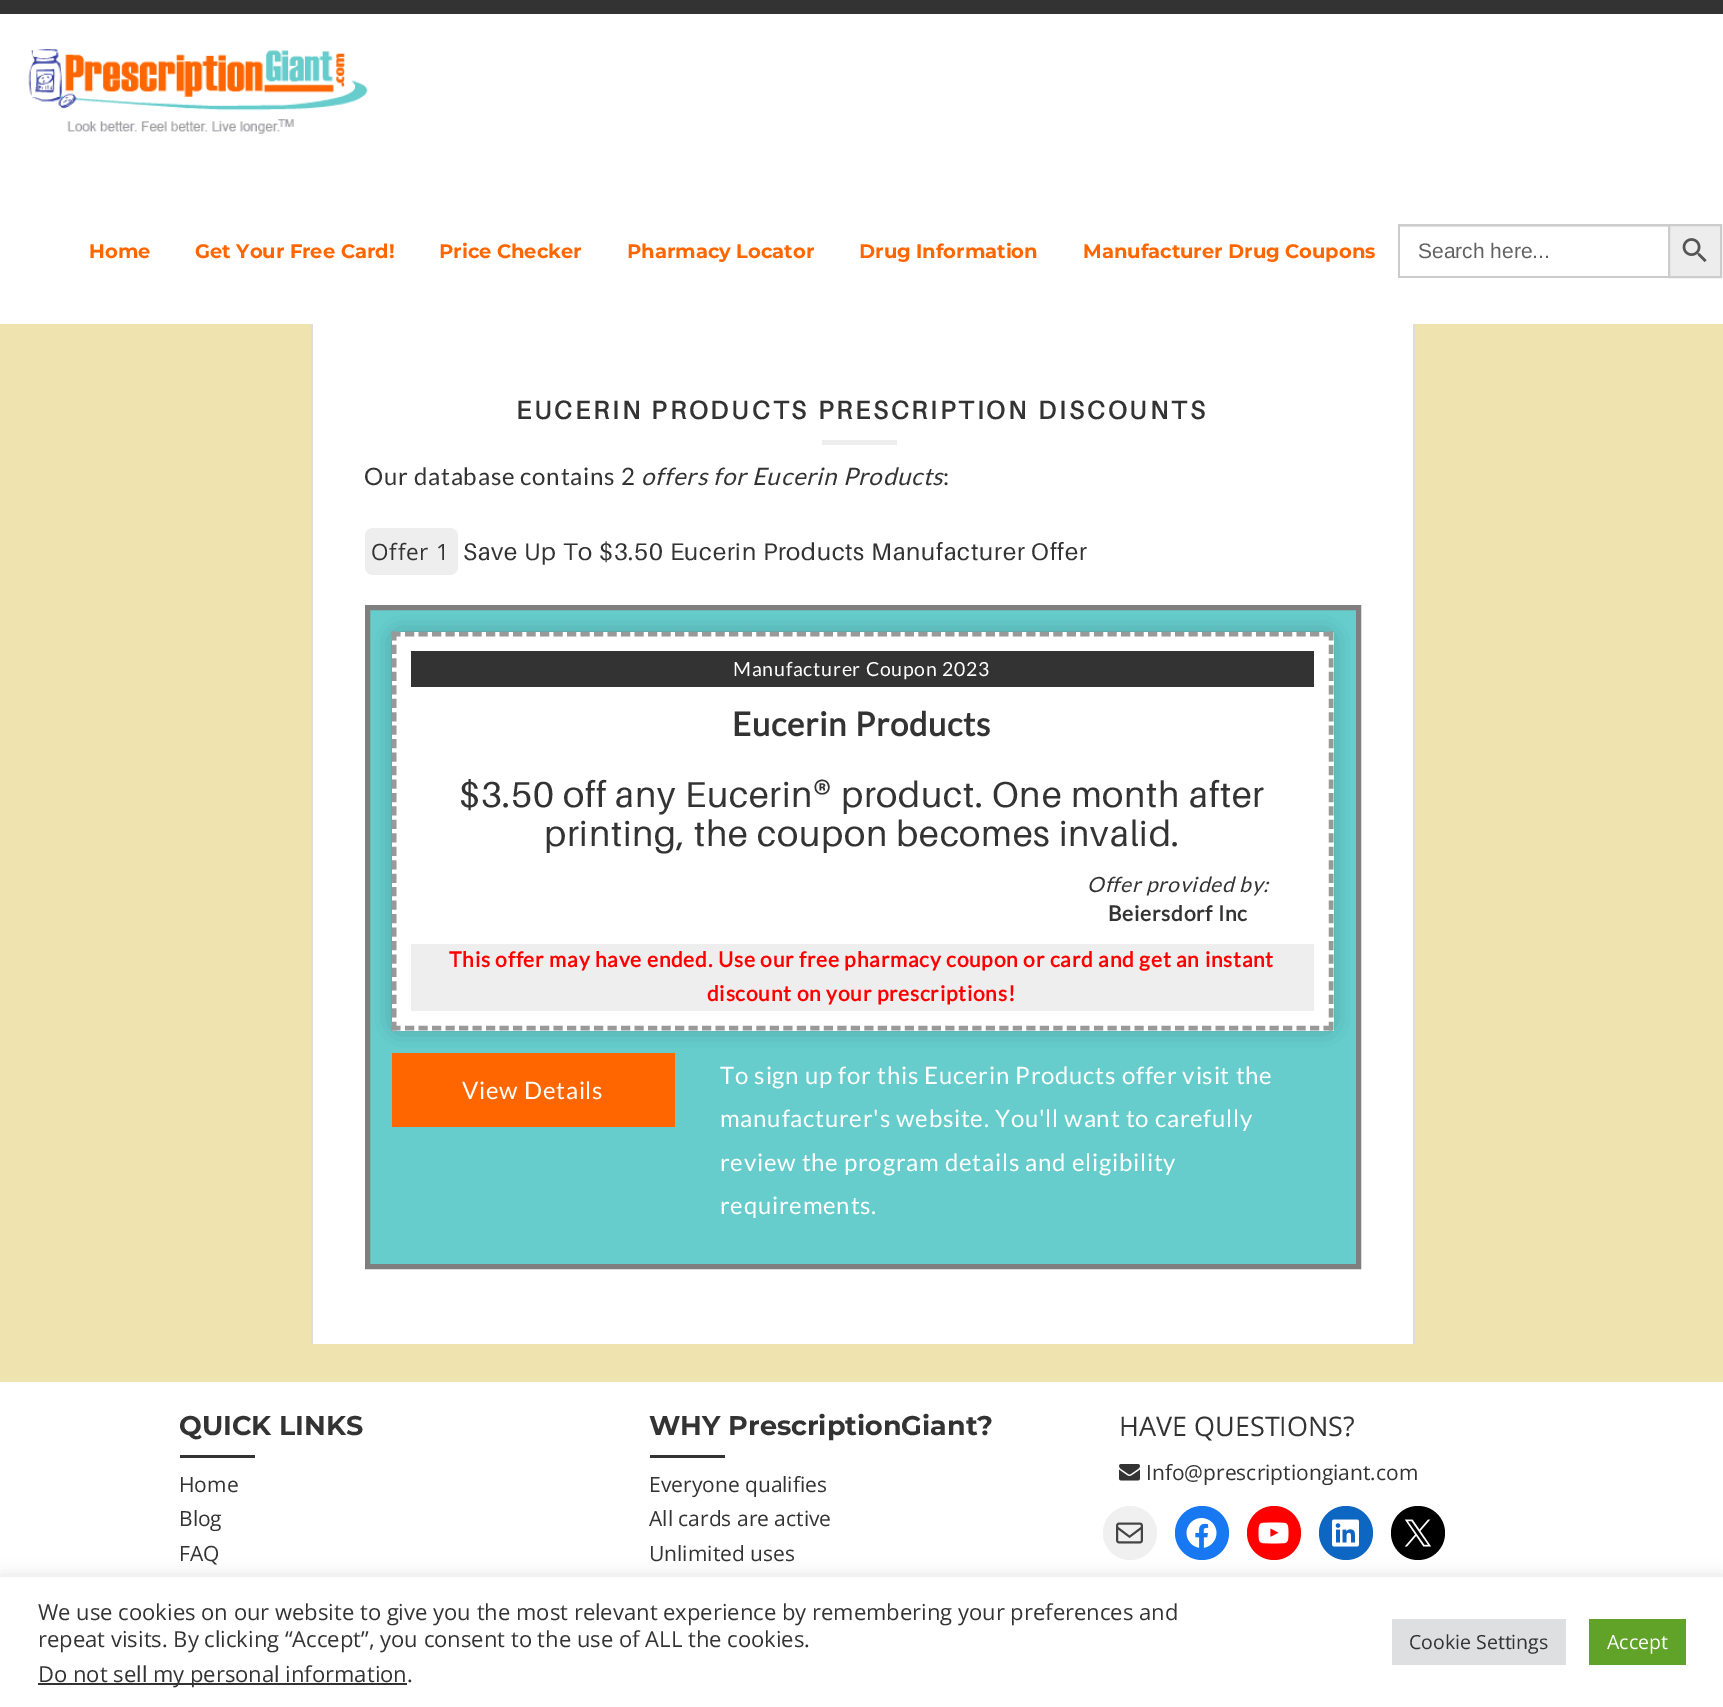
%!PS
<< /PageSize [1723 1707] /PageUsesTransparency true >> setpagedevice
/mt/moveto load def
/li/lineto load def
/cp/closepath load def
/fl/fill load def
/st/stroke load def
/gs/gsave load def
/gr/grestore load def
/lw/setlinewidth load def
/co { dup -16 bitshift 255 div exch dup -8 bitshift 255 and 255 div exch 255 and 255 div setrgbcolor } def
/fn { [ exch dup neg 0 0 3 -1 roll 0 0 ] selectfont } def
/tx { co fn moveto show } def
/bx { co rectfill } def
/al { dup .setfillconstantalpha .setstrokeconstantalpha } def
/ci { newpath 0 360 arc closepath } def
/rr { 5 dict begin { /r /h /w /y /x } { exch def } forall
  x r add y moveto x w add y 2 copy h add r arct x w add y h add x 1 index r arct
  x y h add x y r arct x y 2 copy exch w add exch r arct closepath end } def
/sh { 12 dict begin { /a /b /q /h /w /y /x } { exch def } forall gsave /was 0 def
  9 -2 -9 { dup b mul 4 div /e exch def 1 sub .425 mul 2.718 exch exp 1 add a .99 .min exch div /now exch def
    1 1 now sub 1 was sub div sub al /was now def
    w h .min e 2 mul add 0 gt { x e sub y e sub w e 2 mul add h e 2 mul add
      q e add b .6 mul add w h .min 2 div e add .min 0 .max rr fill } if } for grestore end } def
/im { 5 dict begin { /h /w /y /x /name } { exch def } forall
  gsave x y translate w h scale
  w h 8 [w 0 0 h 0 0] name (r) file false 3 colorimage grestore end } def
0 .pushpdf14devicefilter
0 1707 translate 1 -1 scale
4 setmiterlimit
0 0 1723 1707 16#FFFFFF bx
0 0 1723 14 16#333333 bx
0 324 1723 1058 16#EFE4B0 bx
1413 323 2 1021 16#DDDDDD bx
311 323 2 1021 16#DDDDDD bx
311 323 1104 1 16#FFFFFF bx
(media/1.raw) 28 49 340 85 im
1400 226 268 1 16#DFDFDF bx
1398 224 270 2 16#CCCCCC bx
1398 276 270 2 16#CCCCCC bx
1398 224 2 54 16#CCCCCC bx
16#EDEDED co
1669 225 mt 1721 225 li 1721 277 li 1669 277 li cp gs fl gr
16#CCCCCC co
2 lw
st
(media/2.raw) 1682 238 25 25 im
313 324 1100 1020 16#FFFFFF bx
822 440 75 5 16#EEEEEE bx
365 528 93 47 8 rr fl
16#66CCCC co
367.5 607.5 mt 1358.5 607.5 li 1358.5 1266.5 li 367.5 1266.5 li cp gs fl gr
16#7F7F7F co
5 lw
st
16#000000 co
399 639 927 384 0 11 .5 sh
392 632 942 399 16#FFFFFF bx
16#999999 co
4.5 lw
[9 4.51] 0 setdash
391.5 634 mt 1333.5 634 li st
[9 4.46] 0 setdash
1331 631.5 mt 1331 1030.5 li st
[9 4.51] 0 setdash
391.5 1028 mt 1333.5 1028 li st
[9 4.46] 0 setdash
394 631.5 mt 394 1030.5 li st
411 651 903 36 16#333333 bx
411 944 903 67 16#EEEEEE bx
392 1053 283 74 16#FF6600 bx
180 1455 75 3 16#333333 bx
650 1455 75 3 16#333333 bx
(media/3.raw) 1119 1464 21 17 im
16#F0F0F0 co
1130 1533 27 ci fl
(media/4.raw) 1116 1522 27 22 im
16#1778F2 co
1202 1533 27 ci fl
(media/5.raw) 1186 1518 31 30 im
16#FF0000 co
1274 1533 27 ci fl
(media/6.raw) 1258 1522 31 22 im
16#0D66C2 co
1346 1533 27 ci fl
(media/7.raw) 1332 1519 27 28 im
16#000000 co
1418 1533 27 ci fl
(media/8.raw) 1404 1519 28 28 im
16#ACABAB co
0 1575 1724 131 0 7.5 .3 sh
0 1577 1723 130 16#FFFFFF bx
38 1683 369 2 16#333333 bx
1392 1619 174 46 16#DEDFE0 bx
1589 1619 97 46 16#61A229 bx
(Home) 89 258 /Montserrat-Bold 19.5 16#FF6600 tx
(Get Your Free Card!) 195 258 /Montserrat-Bold 19.5 16#FF6600 tx
(Price Checker) 439 258 /Montserrat-Bold 19.5 16#FF6600 tx
(Pharmacy Locator) 627 258 /Montserrat-Bold 19.5 16#FF6600 tx
(Drug Information) 859 258 /Montserrat-Bold 19.5 16#FF6600 tx
(Manufacturer Drug Coupons) 1083 258 /Montserrat-Bold 19.5 16#FF6600 tx
(Search here...) 1418 258 /LiberationSans-Regular 21 16#616161 tx
/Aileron-Bold 25.5 fn
16#333333 co
516 419 mt 3 0 (EUCERIN PRODUCTS PRESCRIPTION DISCOUNTS) ashow
/Lato-Regular 24 fn
364 485 mt .75 0 (Our database contains 2) ashow
/Lato-Italic 24 fn
641 485 mt .75 0 (offers for Eucerin Products) ashow
/Lato-Regular 24 fn
943 485 mt .75 0 (:) ashow
/OpenSans-Regular 22.5 fn
371 560 mt .75 0 (Offer 1) ashow
/Aileron-Regular 24 fn
463 560 mt .75 0 (Save Up To $3.50 Eucerin Products Manufacturer Offer) ashow
/Lato-Regular 19.5 fn
16#FFFFFF co
733 676 mt .75 0 (Manufacturer Coupon 2023) ashow
/Lato-Bold 33 fn
16#333333 co
732 736 mt .75 0 (Eucerin Products) ashow
/Aileron-Regular 36 fn
459 807 mt .75 0 ($3.50 off any Eucerin® product. One month after) ashow
544 846 mt .75 0 (printing, the coupon becomes invalid.) ashow
/Lato-Italic 21 fn
1087 892 mt .75 0 (Offer provided by:) ashow
/Lato-Bold 21 fn
1108 921 mt .75 0 (Beiersdorf Inc) ashow
16#FF0000 co
449 967 mt .75 0 (This offer may have ended. Use our free pharmacy coupon or card and get an instant) ashow
707 1001 mt .75 0 (discount on your prescriptions!) ashow
/Lato-Regular 24 fn
16#FFFFFF co
462 1099 mt .75 0 (View Details) ashow
720 1084 mt .75 0 (To sign up for this Eucerin Products offer visit the) ashow
720 1127 mt .75 0 (manufacturer's website. You'll want to carefully) ashow
720 1171 mt .75 0 (review the program details and eligibility) ashow
720 1214 mt .75 0 (requirements.) ashow
(QUICK LINKS) 179 1435 /Montserrat-Bold 27 16#333333 tx
(Home) 179 1492 /OpenSans-Regular 21 16#333333 tx
(Blog) 179 1526 /OpenSans-Regular 21 16#333333 tx
(FAQ) 179 1561 /OpenSans-Regular 21 16#333333 tx
(WHY PrescriptionGiant?) 649 1435 /Montserrat-Bold 27 16#333333 tx
(Everyone qualifies) 649 1492 /OpenSans-Regular 21 16#333333 tx
(All cards are active) 649 1526 /OpenSans-Regular 21 16#333333 tx
(Unlimited uses) 649 1561 /OpenSans-Regular 21 16#333333 tx
(HAVE QUESTIONS?) 1119 1436 /OpenSans-Regular 27 16#333333 tx
(Info@prescriptiongiant.com) 1146 1480 /OpenSans-Regular 21 16#333333 tx
(We use cookies on our website to give you the most relevant experience by remembering your preferences and) 38 1620 /OpenSans-Regular 22 16#333333 tx
(repeat visits. By clicking “Accept”, you consent to the use of ALL the cookies.) 38 1647 /OpenSans-Regular 22 16#333333 tx
(Do not sell my personal information.) 38 1682 /OpenSans-Regular 22 16#333333 tx
(Cookie Settings) 1409 1649 /OpenSans-Regular 19.5 16#333333 tx
(Accept) 1607 1649 /OpenSans-Regular 19.5 16#FFFFFF tx
.poppdf14devicefilter showpage
